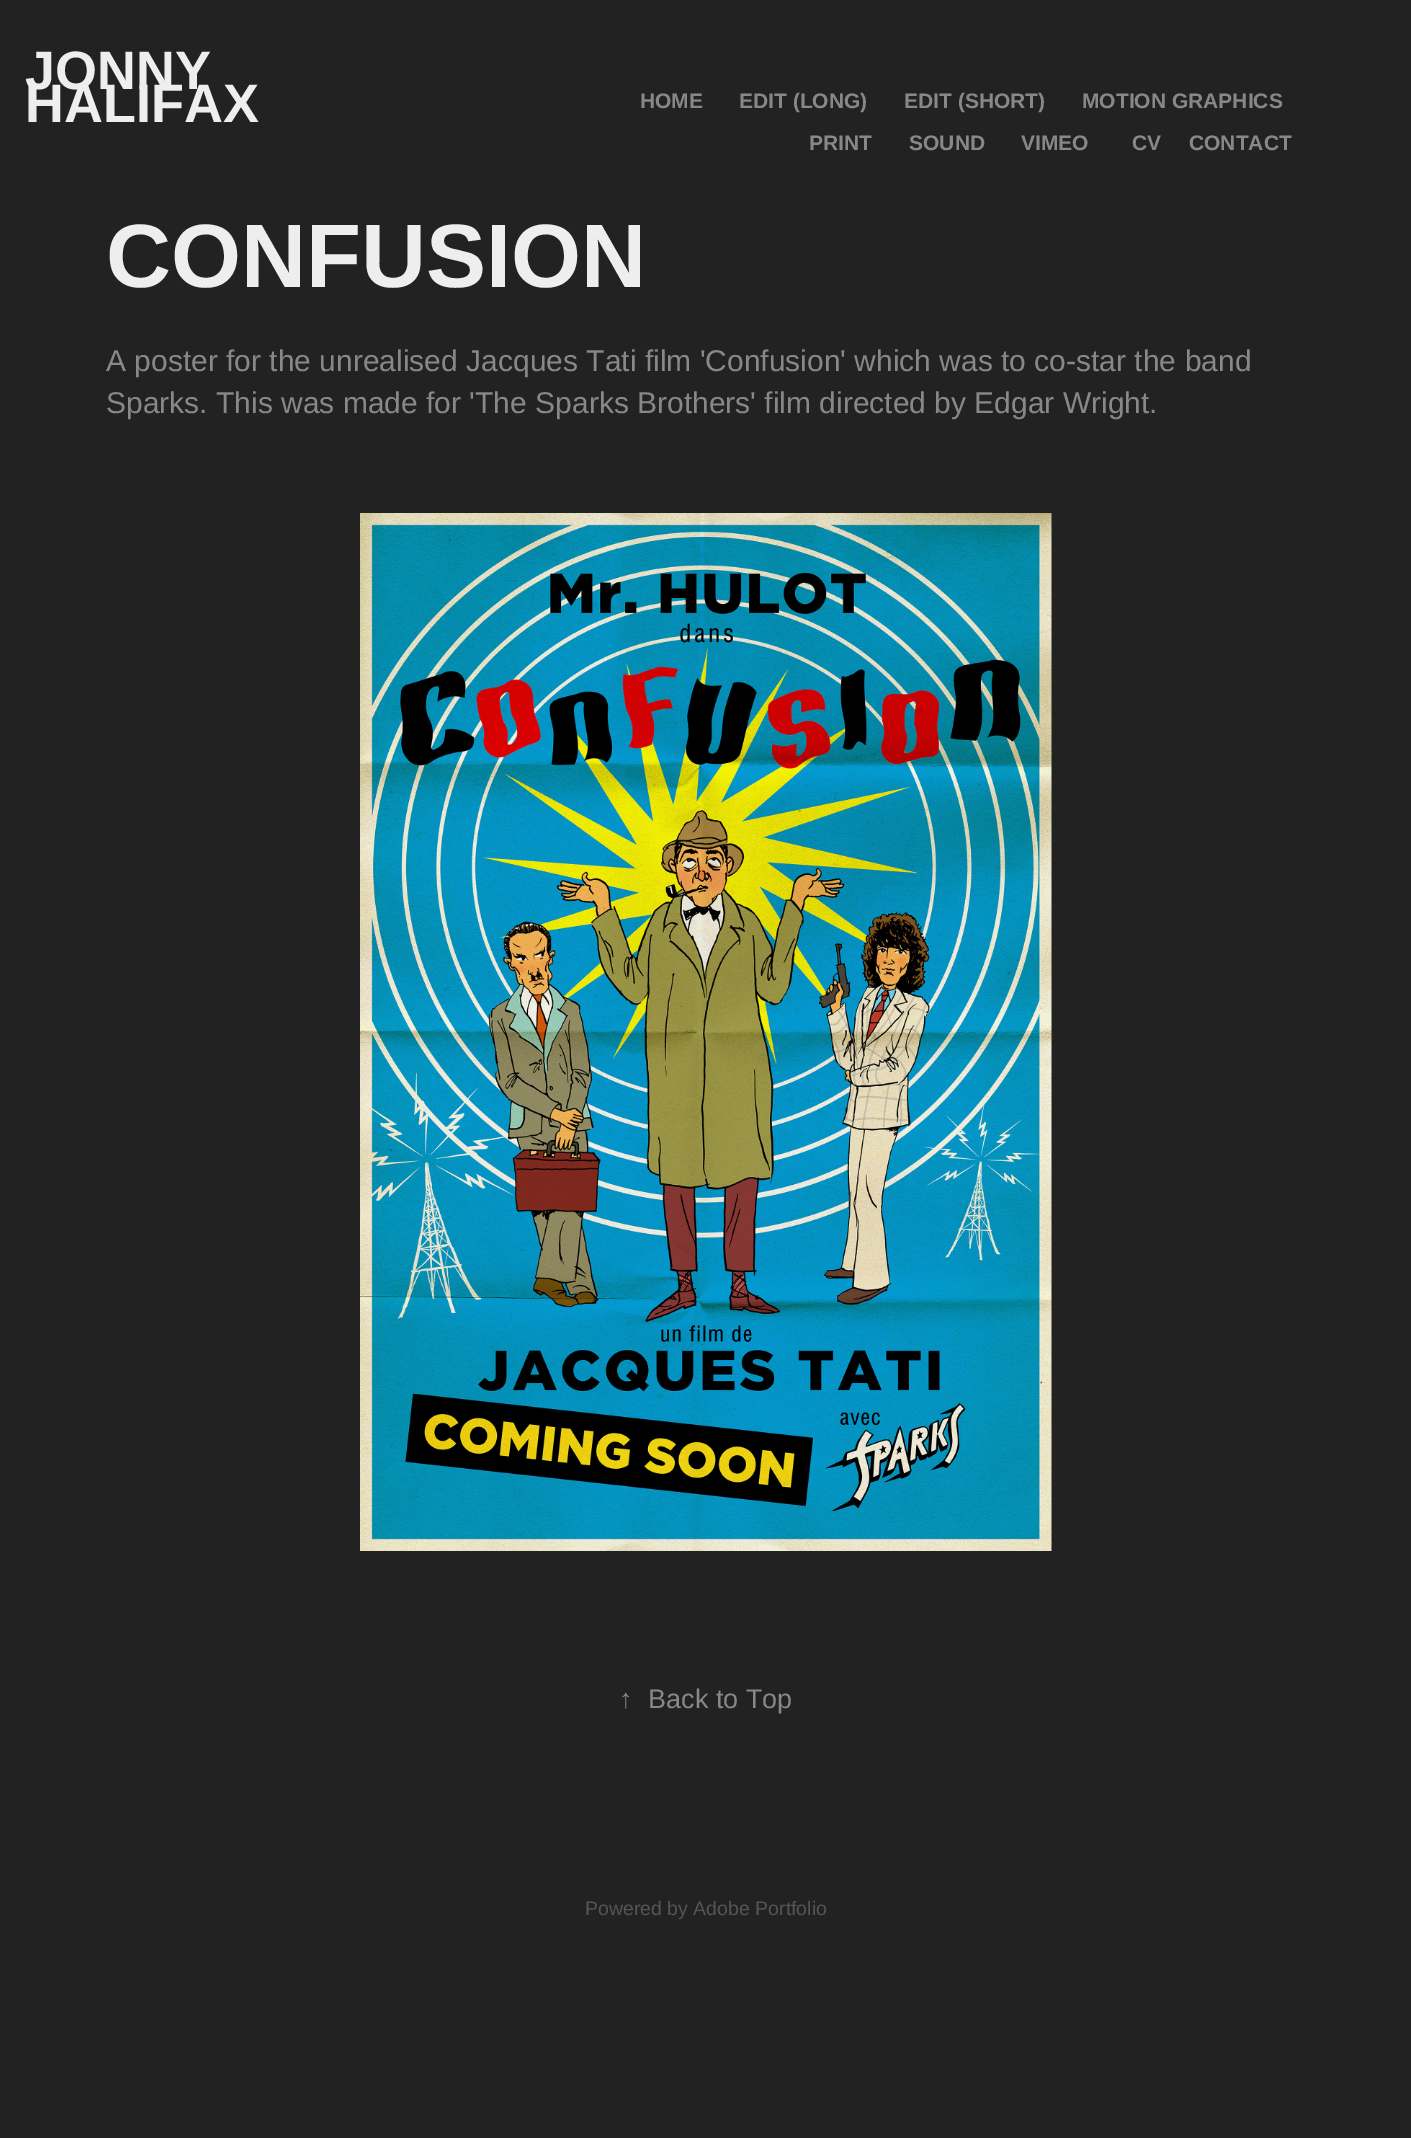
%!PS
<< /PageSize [1411 2138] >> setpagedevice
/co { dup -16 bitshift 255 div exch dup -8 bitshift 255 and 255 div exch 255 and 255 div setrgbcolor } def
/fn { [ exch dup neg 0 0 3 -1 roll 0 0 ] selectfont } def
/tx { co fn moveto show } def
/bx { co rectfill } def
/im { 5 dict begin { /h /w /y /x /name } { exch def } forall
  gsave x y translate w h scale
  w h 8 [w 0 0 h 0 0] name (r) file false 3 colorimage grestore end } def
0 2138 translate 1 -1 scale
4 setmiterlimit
0 0 1411 2138 16#222222 bx
(media/1.raw) 360 513 692 1038 im
(JONNY) 25 89 /LiberationSans-Bold 54 16#EEEEEE tx
(HALIFAX) 25 122 /LiberationSans-Bold 54 16#EEEEEE tx
(HOME) 640 108 /LiberationSans-Bold 21 16#888888 tx
(EDIT \(LONG\)) 739 108 /LiberationSans-Bold 21 16#888888 tx
(EDIT \(SHORT\)) 904 108 /LiberationSans-Bold 21 16#888888 tx
(MOTION GRAPHICS) 1082 108 /LiberationSans-Bold 21 16#888888 tx
(PRINT) 809 150 /LiberationSans-Bold 21 16#888888 tx
(SOUND) 909 150 /LiberationSans-Bold 21 16#888888 tx
(VIMEO) 1021 150 /LiberationSans-Bold 21 16#888888 tx
(CV) 1132 150 /LiberationSans-Bold 21 16#888888 tx
(CONTACT) 1189 150 /LiberationSans-Bold 21 16#888888 tx
(CONFUSION) 106 287 /LiberationSans-Bold 90 16#EEEEEE tx
(A poster for the unrealised Jacques Tati film 'Confusion' which was to co-star the band) 106 371 /LiberationSans-Regular 30 16#888888 tx
(Sparks. This was made for 'The Sparks Brothers' film directed by Edgar Wright.) 106 413 /LiberationSans-Regular 30 16#888888 tx
(↑) 619 1708 /LiberationSans-Regular 27 16#888888 tx
(Back to Top) 648 1708 /LiberationSans-Regular 27 16#888888 tx
(Powered by Adobe Portfolio) 585 1915 /LiberationSans-Regular 19.5 16#555555 tx
showpage
